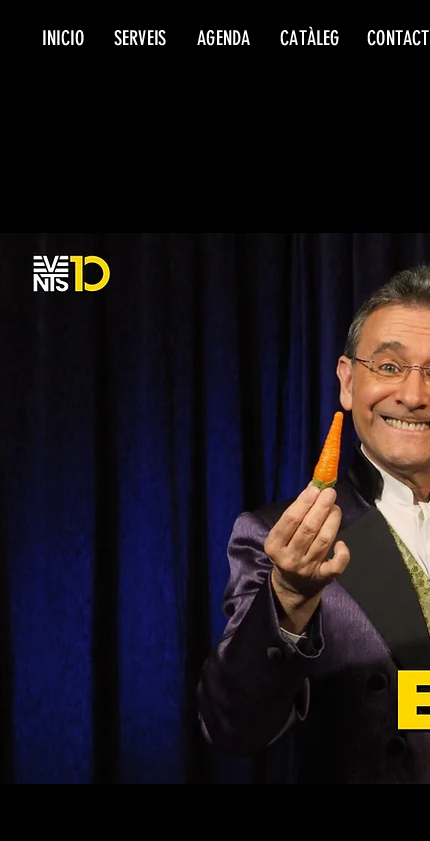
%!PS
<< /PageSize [430 841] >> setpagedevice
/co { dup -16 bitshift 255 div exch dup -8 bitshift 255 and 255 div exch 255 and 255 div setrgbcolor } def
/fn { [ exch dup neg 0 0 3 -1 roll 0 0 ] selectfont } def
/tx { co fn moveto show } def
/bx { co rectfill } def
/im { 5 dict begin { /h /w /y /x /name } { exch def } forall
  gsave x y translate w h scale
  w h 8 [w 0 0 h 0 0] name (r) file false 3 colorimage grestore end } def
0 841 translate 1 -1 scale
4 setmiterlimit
0 0 430 841 16#000000 bx
(media/1.raw) 0 233 430 551 im
(INICIO) 42 45 /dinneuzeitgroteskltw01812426-Regular 20 16#FFFFFF tx
(SERVEIS) 114 45 /dinneuzeitgroteskltw01812426-Regular 20 16#FFFFFF tx
(AGENDA) 197 45 /dinneuzeitgroteskltw01812426-Regular 20 16#FFFFFF tx
(CATÀLEG) 280 45 /dinneuzeitgroteskltw01812426-Regular 20 16#FFFFFF tx
(CONTACT) 367 45 /dinneuzeitgroteskltw01812426-Regular 20 16#FFFFFF tx
showpage
